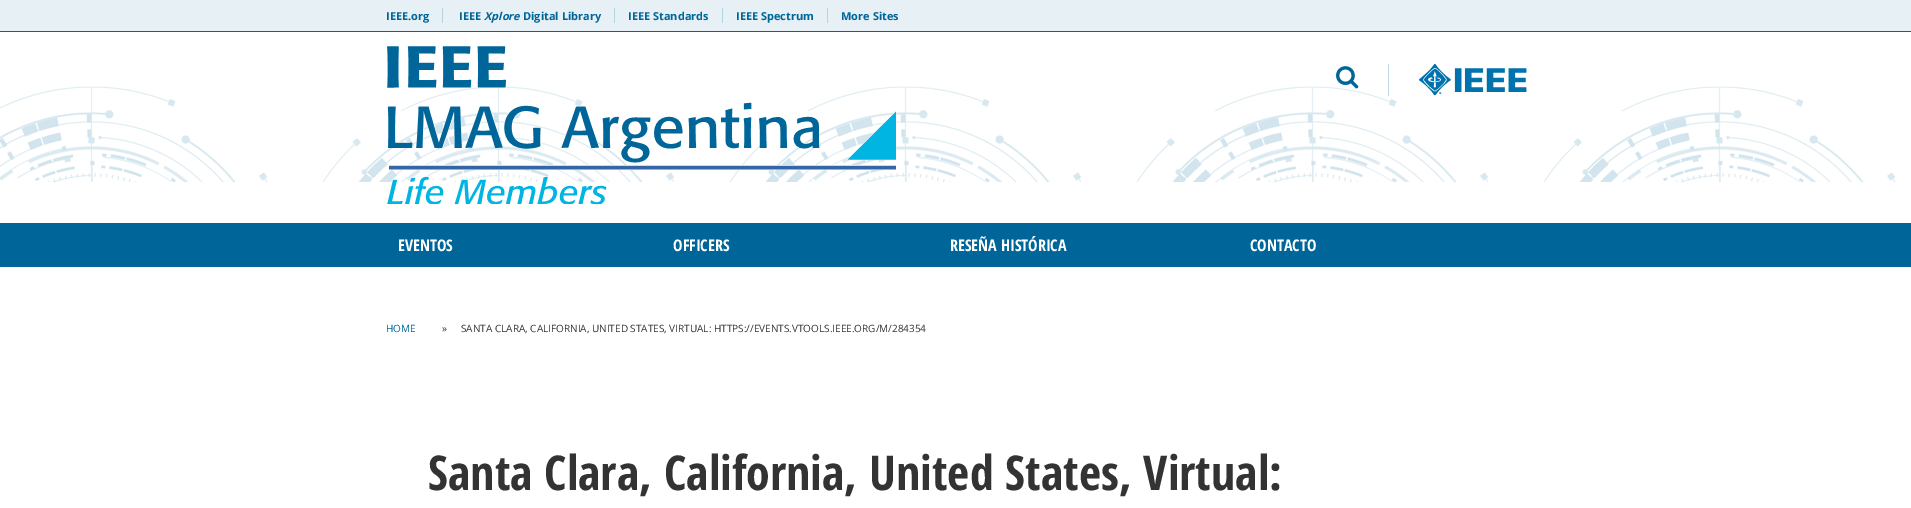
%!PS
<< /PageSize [1911 508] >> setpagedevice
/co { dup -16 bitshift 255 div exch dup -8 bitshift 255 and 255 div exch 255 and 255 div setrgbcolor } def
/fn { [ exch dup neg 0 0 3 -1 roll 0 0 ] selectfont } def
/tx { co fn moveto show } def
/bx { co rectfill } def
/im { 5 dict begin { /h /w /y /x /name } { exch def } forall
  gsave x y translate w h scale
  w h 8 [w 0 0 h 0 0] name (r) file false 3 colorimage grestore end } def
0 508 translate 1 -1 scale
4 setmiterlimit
0 0 1911 508 16#FFFFFF bx
(media/1.raw) 0 86 1896 96 im
0 0 1911 31 16#E6F0F5 bx
0 31 1911 1 16#006699 bx
442 8 1 15 16#B8D4E3 bx
614 8 1 15 16#B8D4E3 bx
722 8 1 15 16#B8D4E3 bx
827 8 1 15 16#B8D4E3 bx
(media/2.raw) 387 46 509 158 im
(media/3.raw) 1336 66 23 23 im
1388 64 1 32 16#BFD9E6 bx
(media/4.raw) 1419 64 108 32 im
0 223 1911 44 16#006699 bx
(IEEE.org) 386 20 /OpenSans-Bold 11 16#006699 tx
(IEEE) 459 20 /OpenSans-Bold 11 16#006699 tx
(Xplore) 484 20 /OpenSans-BoldItalic 11 16#006699 tx
(Digital Library) 523 20 /OpenSans-Bold 11 16#006699 tx
(IEEE Standards) 628 20 /OpenSans-Bold 11 16#006699 tx
(IEEE Spectrum) 736 20 /OpenSans-Bold 11 16#006699 tx
(More Sites) 841 20 /OpenSans-Bold 11 16#006699 tx
(EVENTOS) 398 251 /OpenSansCondensed-Bold 16 16#FFFFFF tx
(OFFICERS) 673 251 /OpenSansCondensed-Bold 16 16#FFFFFF tx
(RESEÑA HISTÓRICA) 950 251 /OpenSansCondensed-Bold 16 16#FFFFFF tx
(CONTACTO) 1250 251 /OpenSansCondensed-Bold 16 16#FFFFFF tx
(HOME) 386 332 /OpenSans-Regular 10 16#006699 tx
(») 442 332 /OpenSans-Regular 10 16#333333 tx
(SANTA CLARA, CALIFORNIA, UNITED STATES, VIRTUAL: HTTPS://EVENTS.VTOOLS.IEEE.ORG/M/284354) 461 332 /OpenSans-Regular 10 16#333333 tx
(Santa Clara, California, United States, Virtual:) 428 490 /OpenSansCondensed-Bold 48 16#333333 tx
showpage
